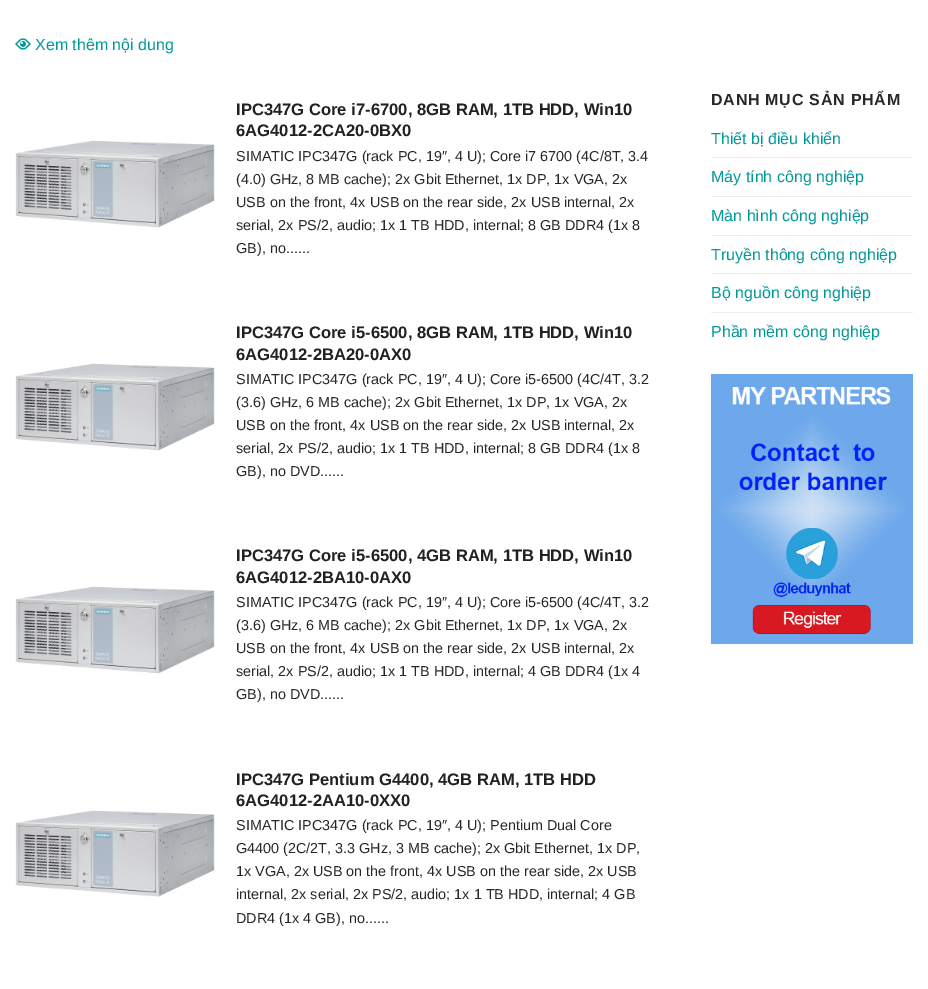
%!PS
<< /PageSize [928 989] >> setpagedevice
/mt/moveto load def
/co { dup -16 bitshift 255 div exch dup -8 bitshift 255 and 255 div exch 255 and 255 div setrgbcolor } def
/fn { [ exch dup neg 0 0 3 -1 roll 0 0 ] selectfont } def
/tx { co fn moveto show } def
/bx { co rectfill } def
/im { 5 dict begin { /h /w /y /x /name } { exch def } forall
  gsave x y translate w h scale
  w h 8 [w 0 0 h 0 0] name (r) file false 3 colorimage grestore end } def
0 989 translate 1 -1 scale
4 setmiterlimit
0 0 928 989 16#FFFFFF bx
(media/1.raw) 15 38 16 12 im
(media/2.raw) 15 140 200 88 im
(media/3.raw) 15 363 200 88 im
(media/3.raw) 15 586 200 88 im
(media/4.raw) 15 810 200 87 im
711 157 202 1 16#ECECEC bx
711 196 202 1 16#ECECEC bx
711 235 202 1 16#ECECEC bx
711 273 202 1 16#ECECEC bx
711 312 202 1 16#ECECEC bx
(media/5.raw) 711 374 202 270 im
(Xem thêm nội dung) 35 50 /LiberationSans-Regular 16 16#009899 tx
(IPC347G Core i7-6700, 8GB RAM, 1TB HDD, Win10) 236 115 /LiberationSans-Bold 16.6 16#212121 tx
(6AG4012-2CA20-0BX0) 236 136 /LiberationSans-Bold 16.6 16#212121 tx
(SIMATIC IPC347G \(rack PC, 19″, 4 U\); Core i7 6700 \(4C/8T, 3.4) 236 161 /LiberationSans-Regular 14.4 16#282828 tx
(\(4.0\) GHz, 8 MB cache\); 2x Gbit Ethernet, 1x DP, 1x VGA, 2x) 236 184 /LiberationSans-Regular 14.4 16#282828 tx
(USB on the front, 4x USB on the rear side, 2x USB internal, 2x) 236 207 /LiberationSans-Regular 14.4 16#282828 tx
(serial, 2x PS/2, audio; 1x 1 TB HDD, internal; 8 GB DDR4 \(1x 8) 236 230 /LiberationSans-Regular 14.4 16#282828 tx
(GB\), no......) 236 253 /LiberationSans-Regular 14.4 16#282828 tx
(IPC347G Core i5-6500, 8GB RAM, 1TB HDD, Win10) 236 338 /LiberationSans-Bold 16.6 16#212121 tx
(6AG4012-2BA20-0AX0) 236 360 /LiberationSans-Bold 16.6 16#212121 tx
(SIMATIC IPC347G \(rack PC, 19″, 4 U\); Core i5-6500 \(4C/4T, 3.2) 236 384 /LiberationSans-Regular 14.4 16#282828 tx
(\(3.6\) GHz, 6 MB cache\); 2x Gbit Ethernet, 1x DP, 1x VGA, 2x) 236 407 /LiberationSans-Regular 14.4 16#282828 tx
(USB on the front, 4x USB on the rear side, 2x USB internal, 2x) 236 430 /LiberationSans-Regular 14.4 16#282828 tx
(serial, 2x PS/2, audio; 1x 1 TB HDD, internal; 8 GB DDR4 \(1x 8) 236 453 /LiberationSans-Regular 14.4 16#282828 tx
(GB\), no DVD......) 236 476 /LiberationSans-Regular 14.4 16#282828 tx
(IPC347G Core i5-6500, 4GB RAM, 1TB HDD, Win10) 236 561 /LiberationSans-Bold 16.6 16#212121 tx
(6AG4012-2BA10-0AX0) 236 583 /LiberationSans-Bold 16.6 16#212121 tx
(SIMATIC IPC347G \(rack PC, 19″, 4 U\); Core i5-6500 \(4C/4T, 3.2) 236 607 /LiberationSans-Regular 14.4 16#282828 tx
(\(3.6\) GHz, 6 MB cache\); 2x Gbit Ethernet, 1x DP, 1x VGA, 2x) 236 630 /LiberationSans-Regular 14.4 16#282828 tx
(USB on the front, 4x USB on the rear side, 2x USB internal, 2x) 236 653 /LiberationSans-Regular 14.4 16#282828 tx
(serial, 2x PS/2, audio; 1x 1 TB HDD, internal; 4 GB DDR4 \(1x 4) 236 676 /LiberationSans-Regular 14.4 16#282828 tx
(GB\), no DVD......) 236 699 /LiberationSans-Regular 14.4 16#282828 tx
(IPC347G Pentium G4400, 4GB RAM, 1TB HDD) 236 785 /LiberationSans-Bold 16.6 16#212121 tx
(6AG4012-2AA10-0XX0) 236 806 /LiberationSans-Bold 16.6 16#212121 tx
(SIMATIC IPC347G \(rack PC, 19″, 4 U\); Pentium Dual Core) 236 830 /LiberationSans-Regular 14.4 16#282828 tx
(G4400 \(2C/2T, 3.3 GHz, 3 MB cache\); 2x Gbit Ethernet, 1x DP,) 236 853 /LiberationSans-Regular 14.4 16#282828 tx
(1x VGA, 2x USB on the front, 4x USB on the rear side, 2x USB) 236 876 /LiberationSans-Regular 14.4 16#282828 tx
(internal, 2x serial, 2x PS/2, audio; 1x 1 TB HDD, internal; 4 GB) 236 899 /LiberationSans-Regular 14.4 16#282828 tx
(DDR4 \(1x 4 GB\), no......) 236 923 /LiberationSans-Regular 14.4 16#282828 tx
/LiberationSans-Bold 16 fn
711 105 mt .75 0 (DANH MỤC SẢN PHẨM) ashow
(Thiết bị điều khiển) 711 144 /LiberationSans-Regular 16 16#009899 tx
(Máy tính công nghiệp) 711 182 /LiberationSans-Regular 16 16#009899 tx
(Màn hình công nghiệp) 711 221 /LiberationSans-Regular 16 16#009899 tx
(Truyền thông công nghiệp) 711 260 /LiberationSans-Regular 16 16#009899 tx
(Bộ nguồn công nghiệp) 711 298 /LiberationSans-Regular 16 16#009899 tx
(Phần mềm công nghiệp) 711 337 /LiberationSans-Regular 16 16#009899 tx
showpage
